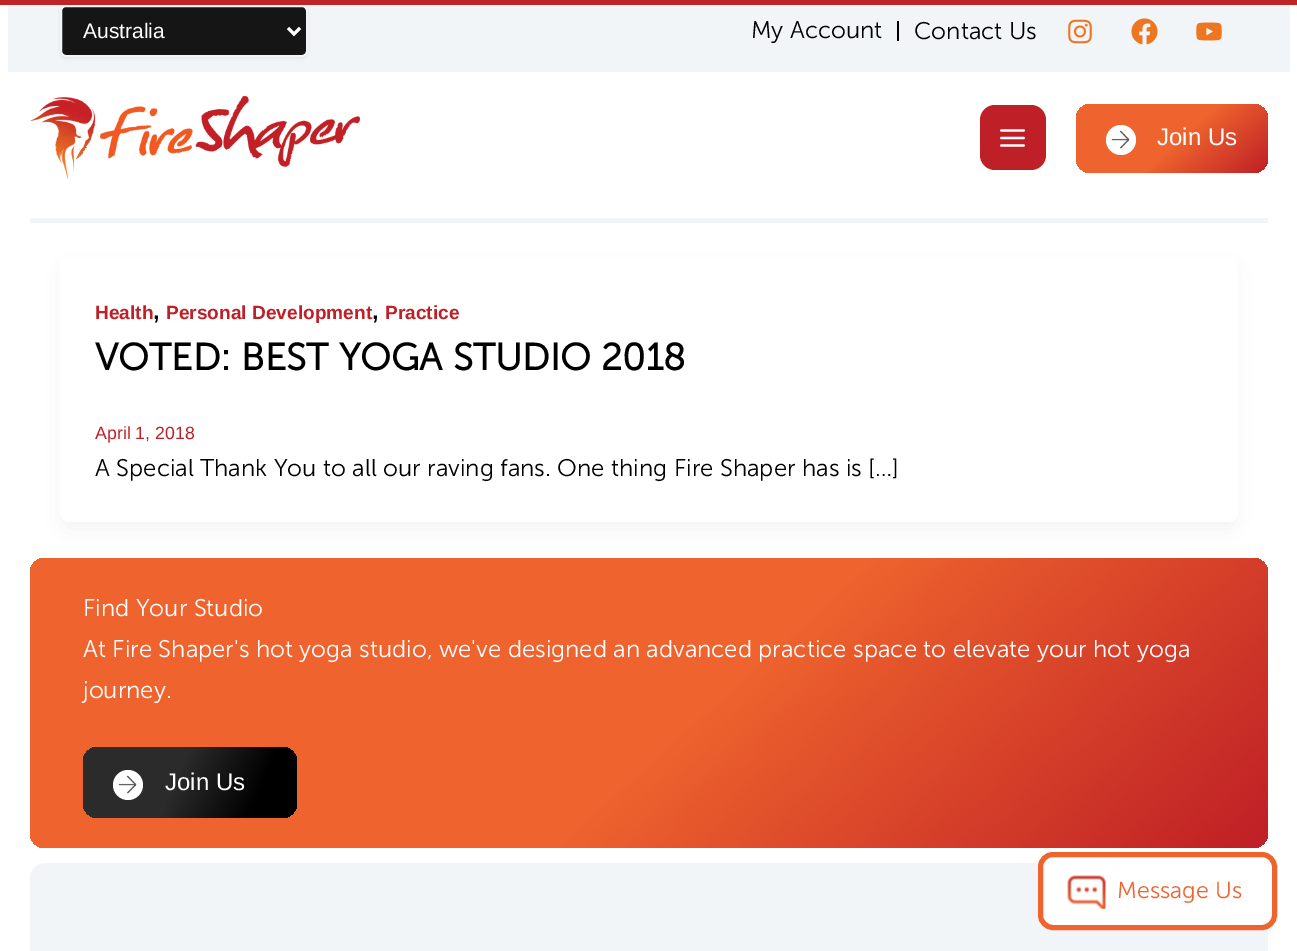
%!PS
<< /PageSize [1297 951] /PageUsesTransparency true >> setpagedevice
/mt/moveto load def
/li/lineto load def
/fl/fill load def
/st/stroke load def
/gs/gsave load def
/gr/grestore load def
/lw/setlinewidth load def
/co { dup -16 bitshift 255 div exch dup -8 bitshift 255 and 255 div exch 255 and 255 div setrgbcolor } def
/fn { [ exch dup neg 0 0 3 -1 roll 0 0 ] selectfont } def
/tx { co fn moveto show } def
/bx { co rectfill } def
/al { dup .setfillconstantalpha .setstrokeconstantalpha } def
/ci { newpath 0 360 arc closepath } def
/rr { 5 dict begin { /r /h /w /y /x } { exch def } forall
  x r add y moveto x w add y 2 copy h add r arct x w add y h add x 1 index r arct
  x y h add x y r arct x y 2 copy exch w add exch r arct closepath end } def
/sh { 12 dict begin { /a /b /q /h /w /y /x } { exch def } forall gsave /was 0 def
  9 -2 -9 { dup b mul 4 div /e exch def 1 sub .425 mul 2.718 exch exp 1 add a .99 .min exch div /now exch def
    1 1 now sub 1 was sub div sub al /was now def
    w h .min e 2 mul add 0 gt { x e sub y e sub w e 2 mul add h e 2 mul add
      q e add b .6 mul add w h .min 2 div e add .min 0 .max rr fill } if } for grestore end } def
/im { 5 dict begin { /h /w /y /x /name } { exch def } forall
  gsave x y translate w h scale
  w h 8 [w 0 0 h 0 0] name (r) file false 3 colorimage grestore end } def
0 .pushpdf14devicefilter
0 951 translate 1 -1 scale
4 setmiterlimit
0 0 1297 951 16#FFFFFF bx
0 0 1297 5 16#BF2427 bx
8 5 1282 67 16#F2F5F7 bx
16#000000 co
60 6 248 53 6 1.5 .05 sh
16#151515 co
61 6 246 50 5 rr gs fl gr
16#F2F5F7 co
2 lw
st
16#FFFFFF co
3 lw
288 28 mt 294 34 li 300 28 li st
897 21 2 20 16#000000 bx
(media/1.raw) 1068 19 24 25 im
(media/2.raw) 1131 18 27 27 im
(media/3.raw) 1196 22 26 19 im
30 218 1238 5 16#F2F5F7 bx
(media/4.raw) 30 96 330 84 im
16#BF1F26 co
980 105 66 65 15 rr fl
(media/5.raw) 1000 129 25 18 im
gs 1076 104 192 69 15 rr clip newpath
<< /ShadingType 2 /ColorSpace /DeviceRGB /Coords [1111 71 1232 205] /Extend [true true] /Function << /FunctionType 3 /Domain [0 1] /Functions [<< /FunctionType 2 /Domain [0 1] /C0 [.933 .388 .18] /C1 [.933 .388 .18] /N 1 >> << /FunctionType 2 /Domain [0 1] /C0 [.933 .388 .18] /C1 [.749 .122 .149] /N 1 >>] /Bounds [.54] /Encode [0 1 0 1] >> >> shfill gr
16#FFFFFF co
1121 140 15 ci fl
(media/6.raw) 1111 130 19 19 im
16#101828 co
63 269 1172 259 6 11 .05 sh
16#FFFFFF co
60 257 1178 265 9 rr fl
gs 30 558 1238 290 15 rr clip newpath
<< /ShadingType 2 /ColorSpace /DeviceRGB /Coords [300 315 998 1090] /Extend [true true] /Function << /FunctionType 3 /Domain [0 1] /Functions [<< /FunctionType 2 /Domain [0 1] /C0 [.933 .388 .18] /C1 [.933 .388 .18] /N 1 >> << /FunctionType 2 /Domain [0 1] /C0 [.933 .388 .18] /C1 [.749 .122 .149] /N 1 >>] /Bounds [.54] /Encode [0 1 0 1] >> >> shfill gr
gs 83 747 214 71 15 rr clip newpath
<< /ShadingType 2 /ColorSpace /DeviceRGB /Coords [87 737 292 828] /Extend [true true] /Function << /FunctionType 3 /Domain [0 1] /Functions [<< /FunctionType 2 /Domain [0 1] /C0 [.169 .169 .169] /C1 [.169 .169 .169] /N 1 >> << /FunctionType 2 /Domain [0 1] /C0 [.169 .169 .169] /C1 [0 0 0] /N 1 >> << /FunctionType 2 /Domain [0 1] /C0 [0 0 0] /C1 [0 0 0] /N 1 >>] /Bounds [.44 .81] /Encode [0 1 0 1 0 1] >> >> shfill gr
128 785 15 ci fl
(media/7.raw) 118 775 19 19 im
16#F2F5F7 co
30 863 1238 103 15 rr fl
16#FFFFFF co
1040.5 854.5 234 73 12.5 rr gs fl gr
16#EE632E co
5 lw
st
(media/8.raw) 1067 875 39 34 im
(Australia) 83 38 /LiberationSans-Regular 21 16#FFFFFF tx
(My Account) 751 38 /MuseoSans-Light 24 16#000000 tx
(Contact Us) 914 39 /MuseoSans-Light 24 16#000000 tx
(Join Us) 1157 145 /LiberationSans-Regular 24 16#FFFFFF tx
(Health) 95 319 /LiberationSans-Bold 19.1 16#BF1F26 tx
(,) 153 319 /LiberationSans-Bold 23.25 16#000000 tx
(Personal Development) 166 319 /LiberationSans-Bold 19.1 16#BF1F26 tx
(,) 372 319 /LiberationSans-Bold 23.25 16#000000 tx
(Practice) 385 319 /LiberationSans-Bold 19.1 16#BF1F26 tx
(VOTED: BEST YOGA STUDIO 2018) 95 370 /MuseoSans-Bold 37.5 16#000000 tx
(April 1, 2018) 95 439 /LiberationSans-Regular 17.75 16#BF1F26 tx
(A Special Thank You to all our raving fans. One thing Fire Shaper has is […]) 95 476 /MuseoSans-Light 24 16#000000 tx
(Find Your Studio) 83 616 /MuseoSans-Light 24 16#FFFFFF tx
(At Fire Shaper's hot yoga studio, we've designed an advanced practice space to elevate your hot yoga) 83 657 /MuseoSans-Light 24 16#FFFFFF tx
(journey.) 83 698 /MuseoSans-Light 24 16#FFFFFF tx
(Join Us) 165 790 /LiberationSans-Regular 24 16#FFFFFF tx
(Message Us) 1117 898 /MuseoSans-Light 23.25 16#EE632E tx
.poppdf14devicefilter showpage
